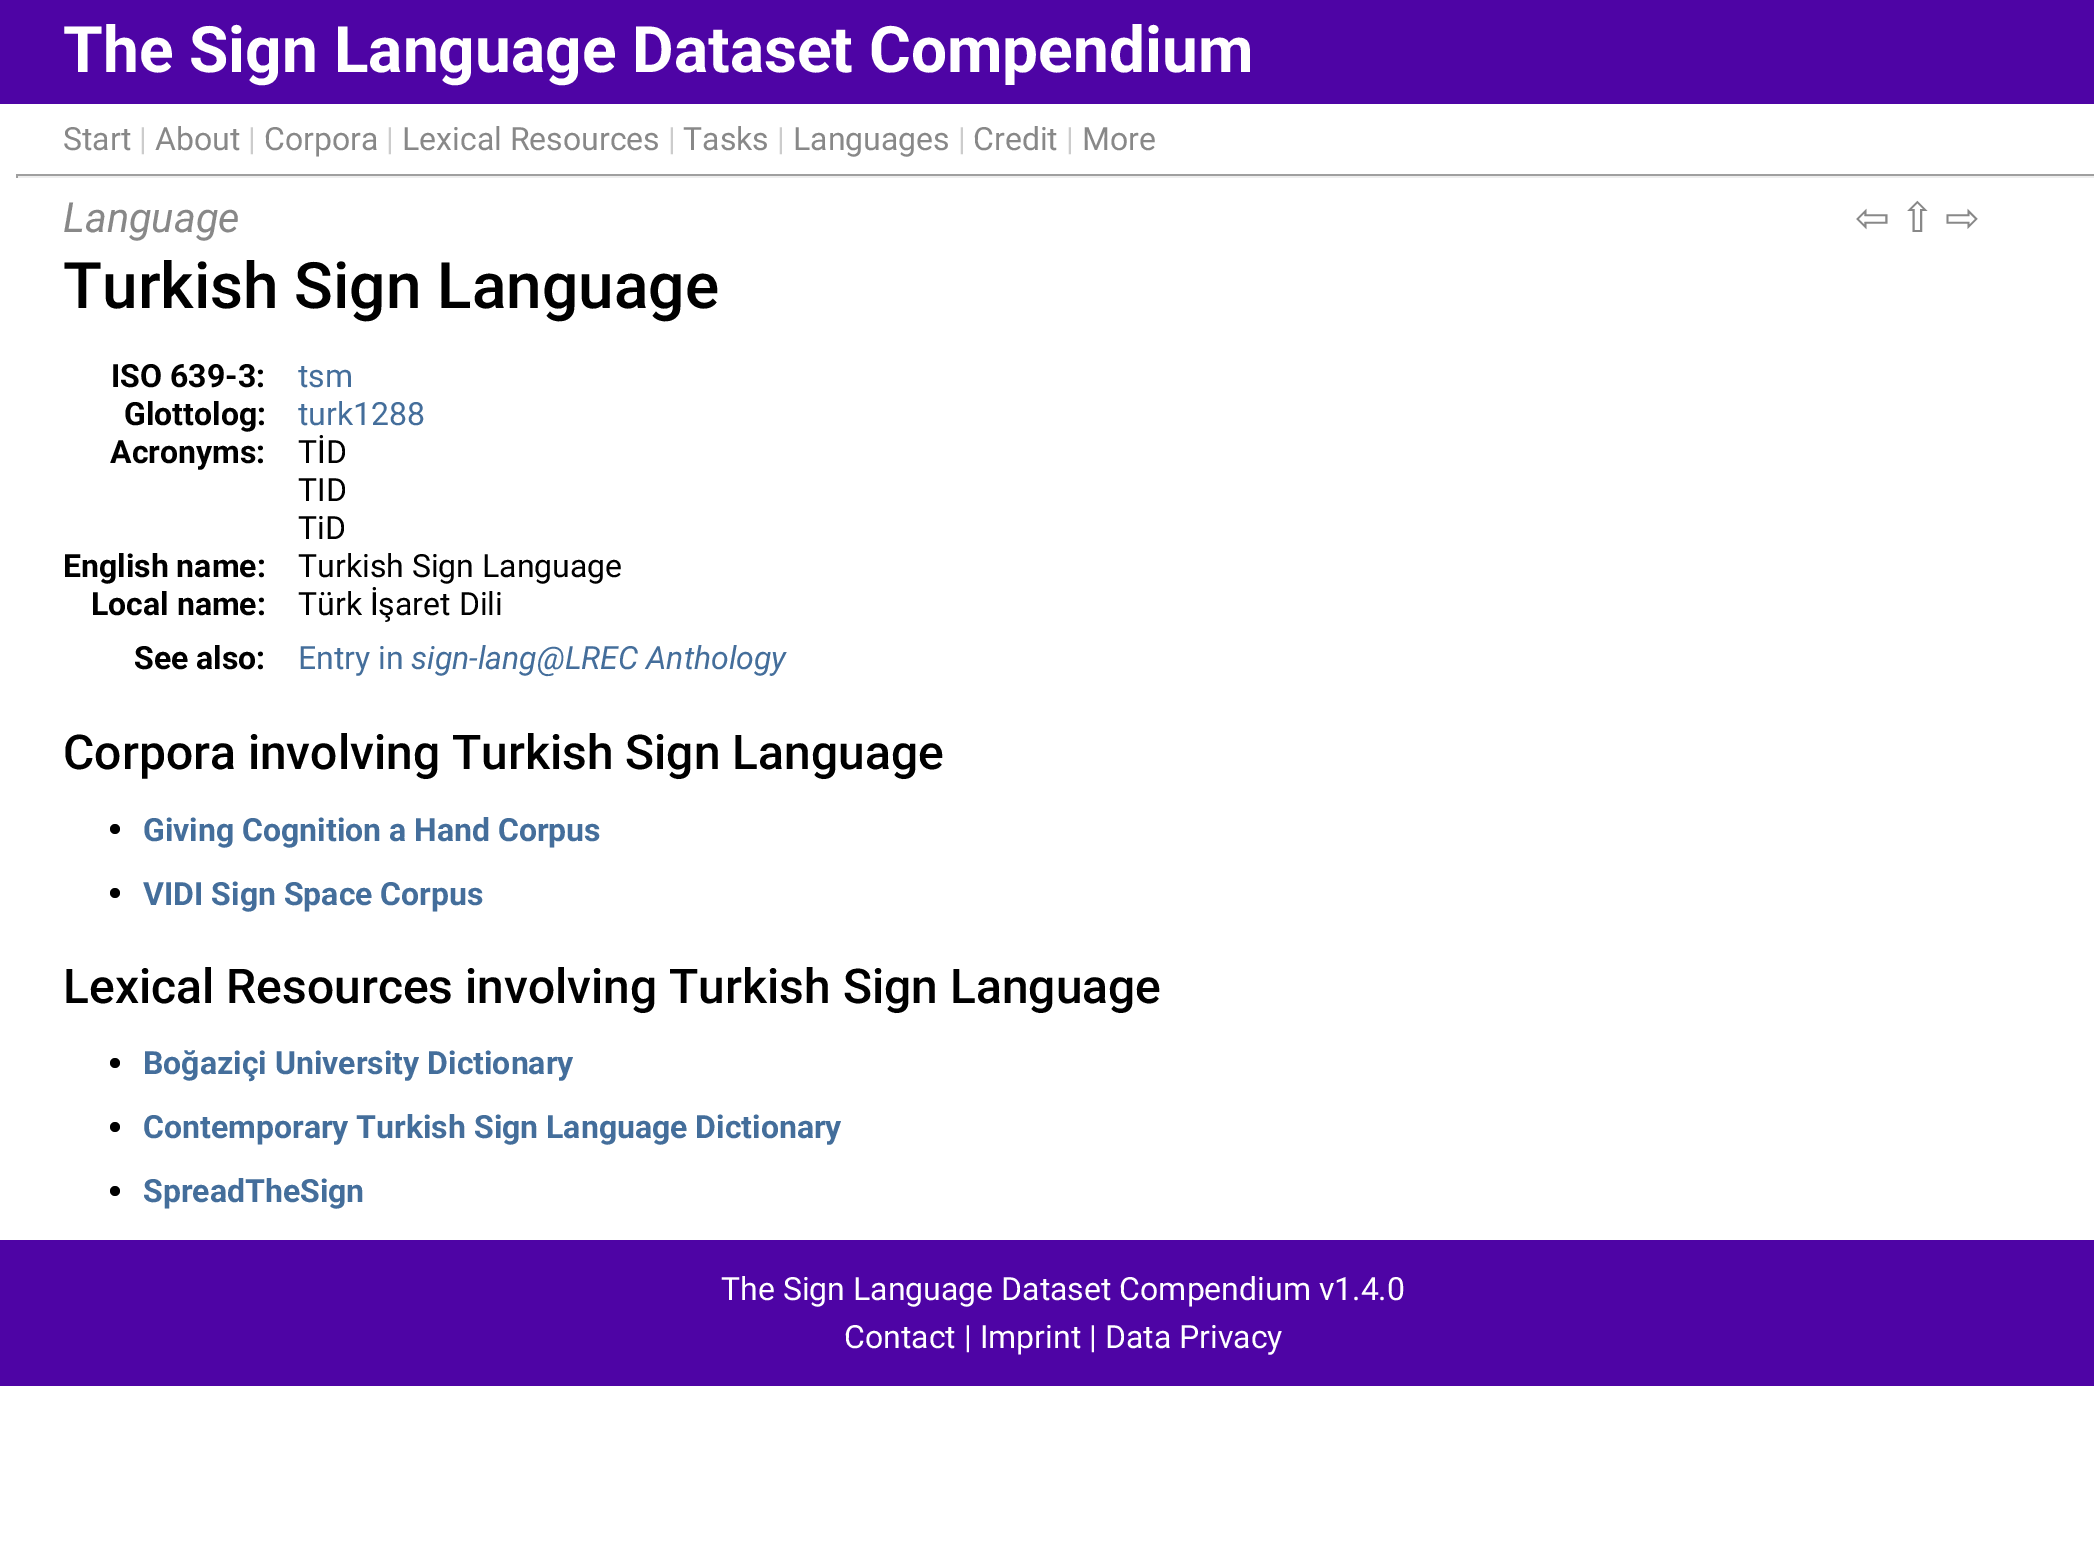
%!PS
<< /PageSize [2094 1562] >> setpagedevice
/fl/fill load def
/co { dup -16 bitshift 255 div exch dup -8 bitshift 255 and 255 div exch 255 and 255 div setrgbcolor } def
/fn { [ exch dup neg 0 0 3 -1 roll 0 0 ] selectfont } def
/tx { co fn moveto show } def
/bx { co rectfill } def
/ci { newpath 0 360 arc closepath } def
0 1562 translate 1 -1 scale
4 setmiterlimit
0 0 2094 1562 16#FFFFFF bx
0 0 2094 104 16#4E04A5 bx
16 174 2078 2 16#9F9F9F bx
16 176 2078 2 16#EEEEEE bx
16 174 2 4 16#9F9F9F bx
16#000000 co
115 829 5 ci fl
115 893 5 ci fl
115 1063 5 ci fl
115 1127 5 ci fl
115 1191 5 ci fl
0 1240 2094 146 16#4E04A5 bx
(The Sign Language Dataset Compendium) 63 72 /Roboto-Bold 64 16#FFFFFF tx
(Start) 63 150 /Roboto-Regular 32 16#888888 tx
(|) 139 150 /Roboto-Regular 32 16#CCCCCC tx
(About) 155 150 /Roboto-Regular 32 16#888888 tx
(|) 248 150 /Roboto-Regular 32 16#CCCCCC tx
(Corpora) 264 150 /Roboto-Regular 32 16#888888 tx
(|) 386 150 /Roboto-Regular 32 16#CCCCCC tx
(Lexical Resources) 402 150 /Roboto-Regular 32 16#888888 tx
(|) 668 150 /Roboto-Regular 32 16#CCCCCC tx
(Tasks) 683 150 /Roboto-Regular 32 16#888888 tx
(|) 777 150 /Roboto-Regular 32 16#CCCCCC tx
(Languages) 793 150 /Roboto-Regular 32 16#888888 tx
(|) 958 150 /Roboto-Regular 32 16#CCCCCC tx
(Credit) 973 150 /Roboto-Regular 32 16#888888 tx
(|) 1066 150 /Roboto-Regular 32 16#CCCCCC tx
(More) 1082 150 /Roboto-Regular 32 16#888888 tx
(Language) 63 232 /Roboto-Italic 41.5 16#888888 tx
(⇦) 1855 232 /DejaVuSans-Regular 41.5 16#888888 tx
(⇧) 1900 232 /DejaVuSans-Regular 41.5 16#888888 tx
(⇨) 1945 232 /DejaVuSans-Regular 41.5 16#888888 tx
(Turkish Sign Language) 63 308 /Roboto-Medium 64 16#000000 tx
(ISO 639-3:) 111 387 /Roboto-Bold 32 16#000000 tx
(tsm) 298 387 /Roboto-Regular 32 16#446E9B tx
(Glottolog:) 124 425 /Roboto-Bold 32 16#000000 tx
(turk1288) 298 425 /Roboto-Regular 32 16#446E9B tx
(Acronyms:) 110 463 /Roboto-Bold 32 16#000000 tx
(TİD) 298 463 /Roboto-Regular 32 16#000000 tx
(TID) 298 501 /Roboto-Regular 32 16#000000 tx
(TiD) 298 539 /Roboto-Regular 32 16#000000 tx
(English name:) 63 577 /Roboto-Bold 32 16#000000 tx
(Turkish Sign Language) 298 577 /Roboto-Regular 32 16#000000 tx
(Local name:) 91 615 /Roboto-Bold 32 16#000000 tx
(Türk İşaret Dili) 298 615 /Roboto-Regular 32 16#000000 tx
(See also:) 134 669 /Roboto-Bold 32 16#000000 tx
(Entry in) 298 669 /Roboto-Regular 32 16#446E9B tx
(sign-lang@LREC Anthology) 411 669 /Roboto-Italic 32 16#446E9B tx
(Corpora involving Turkish Sign Language) 63 769 /Roboto-Medium 48 16#000000 tx
(Giving Cognition a Hand Corpus) 143 841 /Roboto-Bold 32 16#446E9B tx
(VIDI Sign Space Corpus) 143 905 /Roboto-Bold 32 16#446E9B tx
(Lexical Resources involving Turkish Sign Language) 63 1003 /Roboto-Medium 48 16#000000 tx
(Boğaziçi University Dictionary) 143 1074 /Roboto-Bold 32 16#446E9B tx
(Contemporary Turkish Sign Language Dictionary) 143 1138 /Roboto-Bold 32 16#446E9B tx
(SpreadTheSign) 143 1202 /Roboto-Bold 32 16#446E9B tx
(The Sign Language Dataset Compendium v1.4.0) 721 1300 /Roboto-Regular 32 16#FFFFFF tx
(Contact | Imprint | Data Privacy) 844 1348 /Roboto-Regular 32 16#FFFFFF tx
showpage
